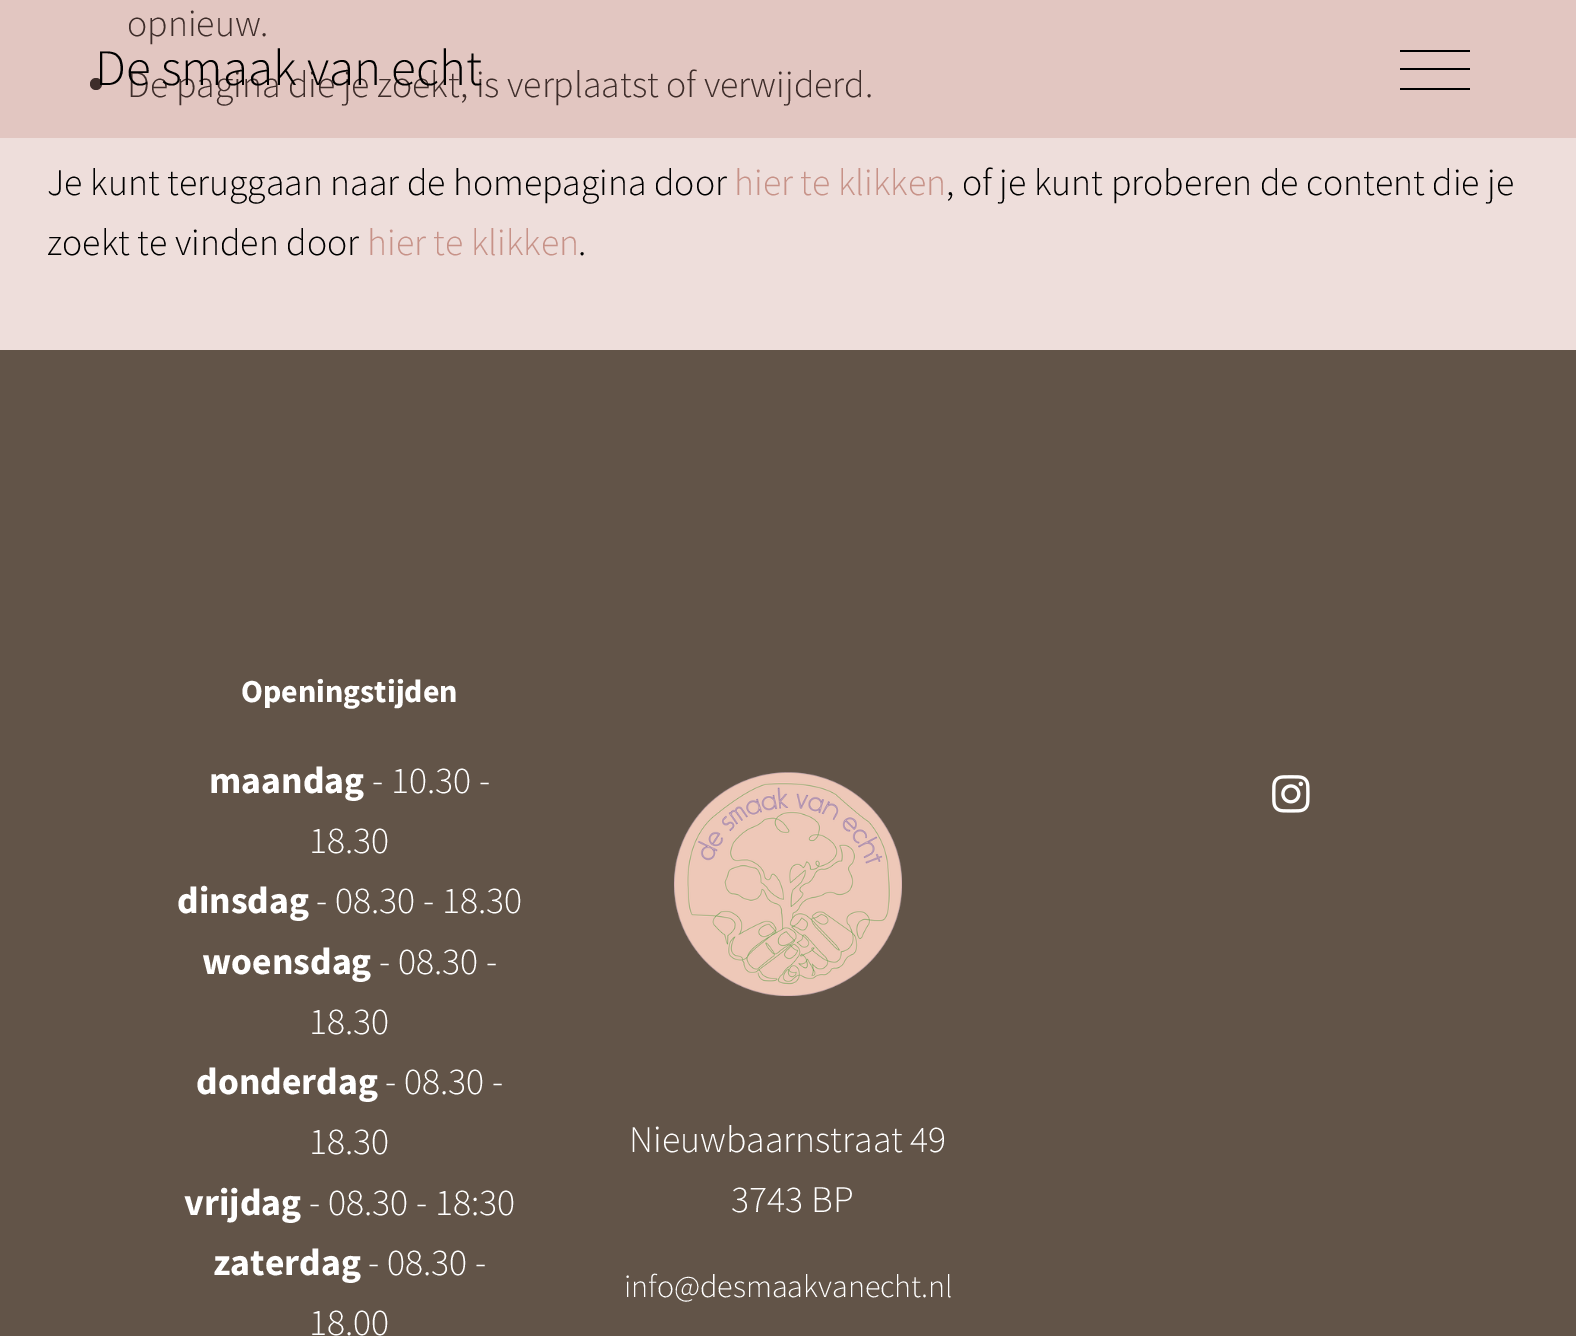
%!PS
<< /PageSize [1576 1336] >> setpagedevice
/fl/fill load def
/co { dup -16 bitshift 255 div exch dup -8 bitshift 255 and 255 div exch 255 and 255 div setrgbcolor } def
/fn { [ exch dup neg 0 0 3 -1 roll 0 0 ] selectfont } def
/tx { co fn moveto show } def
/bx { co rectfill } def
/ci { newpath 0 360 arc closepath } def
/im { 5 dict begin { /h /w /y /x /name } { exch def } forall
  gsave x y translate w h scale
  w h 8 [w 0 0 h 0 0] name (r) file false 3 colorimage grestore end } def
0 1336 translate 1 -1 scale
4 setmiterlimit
0 0 1576 1336 16#EEDEDB bx
0 0 1576 138 16#E2C6C1 bx
16#3E2D2A co
96 84 6 ci fl
1400 50 70 2 16#000000 bx
1400 68 70 2 16#000000 bx
1400 88 70 2 16#000000 bx
0 350 1576 986 16#625448 bx
(media/1.raw) 674 772 228 224 im
(media/2.raw) 1272 775 38 38 im
(opnieuw.) 127 36 /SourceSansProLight-Light 37.7 16#3E2D2A tx
(De pagina die je zoekt, is verplaatst of verwijderd.) 127 97 /SourceSansProLight-Light 37.7 16#3E2D2A tx
(Je kunt teruggaan naar de homepagina door) 47 195 /SourceSansProLight-Light 37.7 16#000000 tx
(hier te klikken) 734 195 /SourceSansProLight-Light 37.7 16#C79288 tx
(, of je kunt proberen de content die je) 946 195 /SourceSansProLight-Light 37.7 16#000000 tx
(zoekt te vinden door) 47 255 /SourceSansProLight-Light 37.7 16#000000 tx
(hier te klikken) 367 255 /SourceSansProLight-Light 37.7 16#C79288 tx
(.) 578 255 /SourceSansProLight-Light 37.7 16#000000 tx
(De smaak van echt) 95 85 /SourceSansProLight-Light 51 16#000000 tx
(Openingstijden) 241 702 /SourceSansPro-Bold 32 16#FFFFFF tx
(maandag) 209 793 /SourceSansPro-Bold 37.7 16#FFFFFF tx
(- 10.30 -) 372 793 /SourceSansProLight-Light 37.7 16#FFFFFF tx
(18.30) 309 853 /SourceSansProLight-Light 37.7 16#FFFFFF tx
(dinsdag) 177 913 /SourceSansPro-Bold 37.7 16#FFFFFF tx
(- 08.30 - 18.30) 316 913 /SourceSansProLight-Light 37.7 16#FFFFFF tx
(woensdag) 202 974 /SourceSansPro-Bold 37.7 16#FFFFFF tx
(- 08.30 -) 379 974 /SourceSansProLight-Light 37.7 16#FFFFFF tx
(18.30) 309 1034 /SourceSansProLight-Light 37.7 16#FFFFFF tx
(donderdag) 196 1094 /SourceSansPro-Bold 37.7 16#FFFFFF tx
(- 08.30 -) 385 1094 /SourceSansProLight-Light 37.7 16#FFFFFF tx
(18.30) 309 1154 /SourceSansProLight-Light 37.7 16#FFFFFF tx
(vrijdag) 184 1215 /SourceSansPro-Bold 37.7 16#FFFFFF tx
(- 08.30 - 18:30) 309 1215 /SourceSansProLight-Light 37.7 16#FFFFFF tx
(zaterdag) 213 1275 /SourceSansPro-Bold 37.7 16#FFFFFF tx
(- 08.30 -) 368 1275 /SourceSansProLight-Light 37.7 16#FFFFFF tx
(18.00) 309 1335 /SourceSansProLight-Light 37.7 16#FFFFFF tx
(Nieuwbaarnstraat 49) 629 1152 /SourceSansProLight-Light 37.7 16#FFFFFF tx
(3743 BP) 731 1212 /SourceSansProLight-Light 37.7 16#FFFFFF tx
(info@desmaakvanecht.nl) 624 1297 /SourceSansProLight-Light 32 16#FFFFFF tx
showpage
